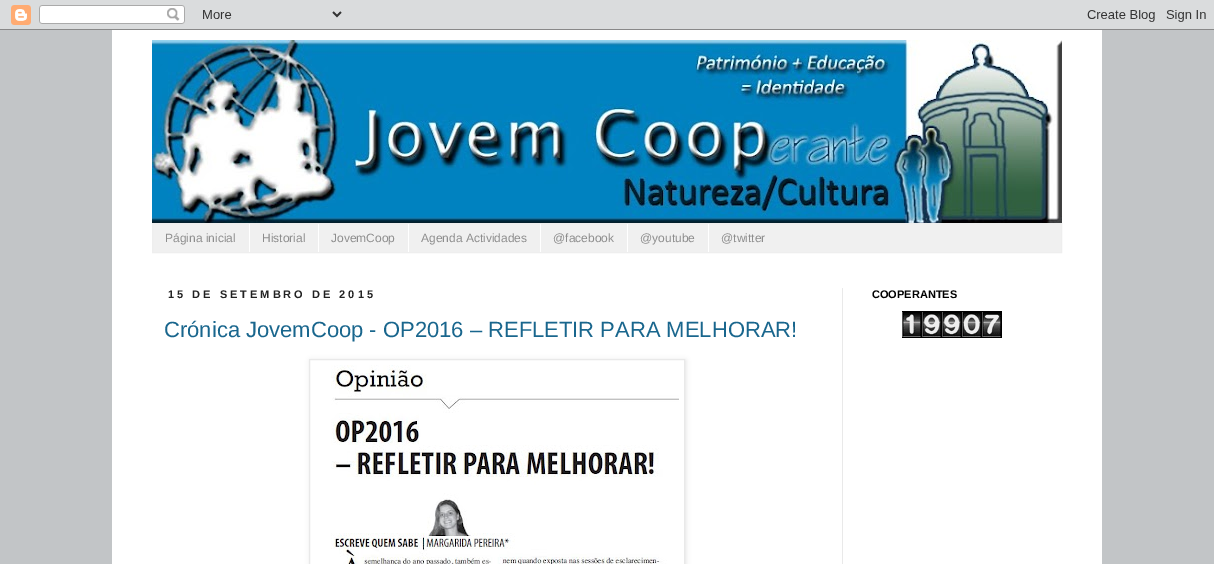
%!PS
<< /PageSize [1214 564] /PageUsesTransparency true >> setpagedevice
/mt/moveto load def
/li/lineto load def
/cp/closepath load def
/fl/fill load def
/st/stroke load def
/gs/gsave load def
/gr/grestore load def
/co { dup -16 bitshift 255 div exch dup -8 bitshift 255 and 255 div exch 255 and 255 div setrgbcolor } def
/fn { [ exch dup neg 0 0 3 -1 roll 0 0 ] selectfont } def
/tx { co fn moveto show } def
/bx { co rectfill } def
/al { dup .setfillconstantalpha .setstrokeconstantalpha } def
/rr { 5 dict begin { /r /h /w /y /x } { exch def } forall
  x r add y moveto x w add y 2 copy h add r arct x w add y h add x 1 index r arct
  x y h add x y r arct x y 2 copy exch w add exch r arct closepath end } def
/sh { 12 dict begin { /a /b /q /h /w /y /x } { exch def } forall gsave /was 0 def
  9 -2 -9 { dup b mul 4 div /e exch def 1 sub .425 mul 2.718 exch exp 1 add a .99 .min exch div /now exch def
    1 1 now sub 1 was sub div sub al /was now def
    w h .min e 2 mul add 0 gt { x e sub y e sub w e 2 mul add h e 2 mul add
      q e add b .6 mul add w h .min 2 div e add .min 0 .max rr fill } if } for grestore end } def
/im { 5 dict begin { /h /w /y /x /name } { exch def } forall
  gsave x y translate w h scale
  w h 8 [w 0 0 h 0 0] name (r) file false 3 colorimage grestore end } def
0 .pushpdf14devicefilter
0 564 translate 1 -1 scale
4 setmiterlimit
0 0 1214 564 16#C2C5C7 bx
(media/1.raw) 0 0 1214 30 im
112 30 990 534 16#FFFFFF bx
(media/2.raw) 152 40 910 183 im
16#F0F0F0 co
152.5 223.5 mt 1061.5 223.5 li 1061.5 252.5 li 152.5 252.5 li cp gs fl gr
16#EEEEEE co
st
249 224 1 28 16#FFFFFF bx
318 224 1 28 16#FFFFFF bx
408 224 1 28 16#FFFFFF bx
540 224 1 28 16#FFFFFF bx
627 224 1 28 16#FFFFFF bx
708 224 1 28 16#FFFFFF bx
842 288 1 276 16#E9E9E9 bx
gs
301 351 mt 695 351 li 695 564 li 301 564 li cp 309 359 mt 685 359 li 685 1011 li 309 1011 li cp eoclip newpath
16#000000 co
310 360 376 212 0 2.5 .1 sh
gr
309.5 359.5 375 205 rectstroke
(media/3.raw) 331 365 348 199 im
(media/4.raw) 902 311 100 27 im
(Página inicial) 165 242 /LiberationSans-Regular 12 16#8D8D8D tx
(Historial) 262 242 /LiberationSans-Regular 12 16#8D8D8D tx
(JovemCoop) 331 242 /LiberationSans-Regular 12 16#8D8D8D tx
(Agenda Actividades) 421 242 /LiberationSans-Regular 12 16#8D8D8D tx
(@facebook) 553 242 /LiberationSans-Regular 12 16#8D8D8D tx
(@youtube) 640 242 /LiberationSans-Regular 12 16#8D8D8D tx
(@twitter) 721 242 /LiberationSans-Regular 12 16#8D8D8D tx
/LiberationSans-Bold 11 fn
16#222222 co
168 298 mt 3 0 (15 DE SETEMBRO DE 2015) ashow
(Crónica JovemCoop - OP2016 – REFLETIR PARA MELHORAR!) 164 337 /LiberationSans-Regular 22 16#19668D tx
(COOPERANTES) 872 298 /LiberationSans-Bold 11 16#000000 tx
.poppdf14devicefilter showpage
